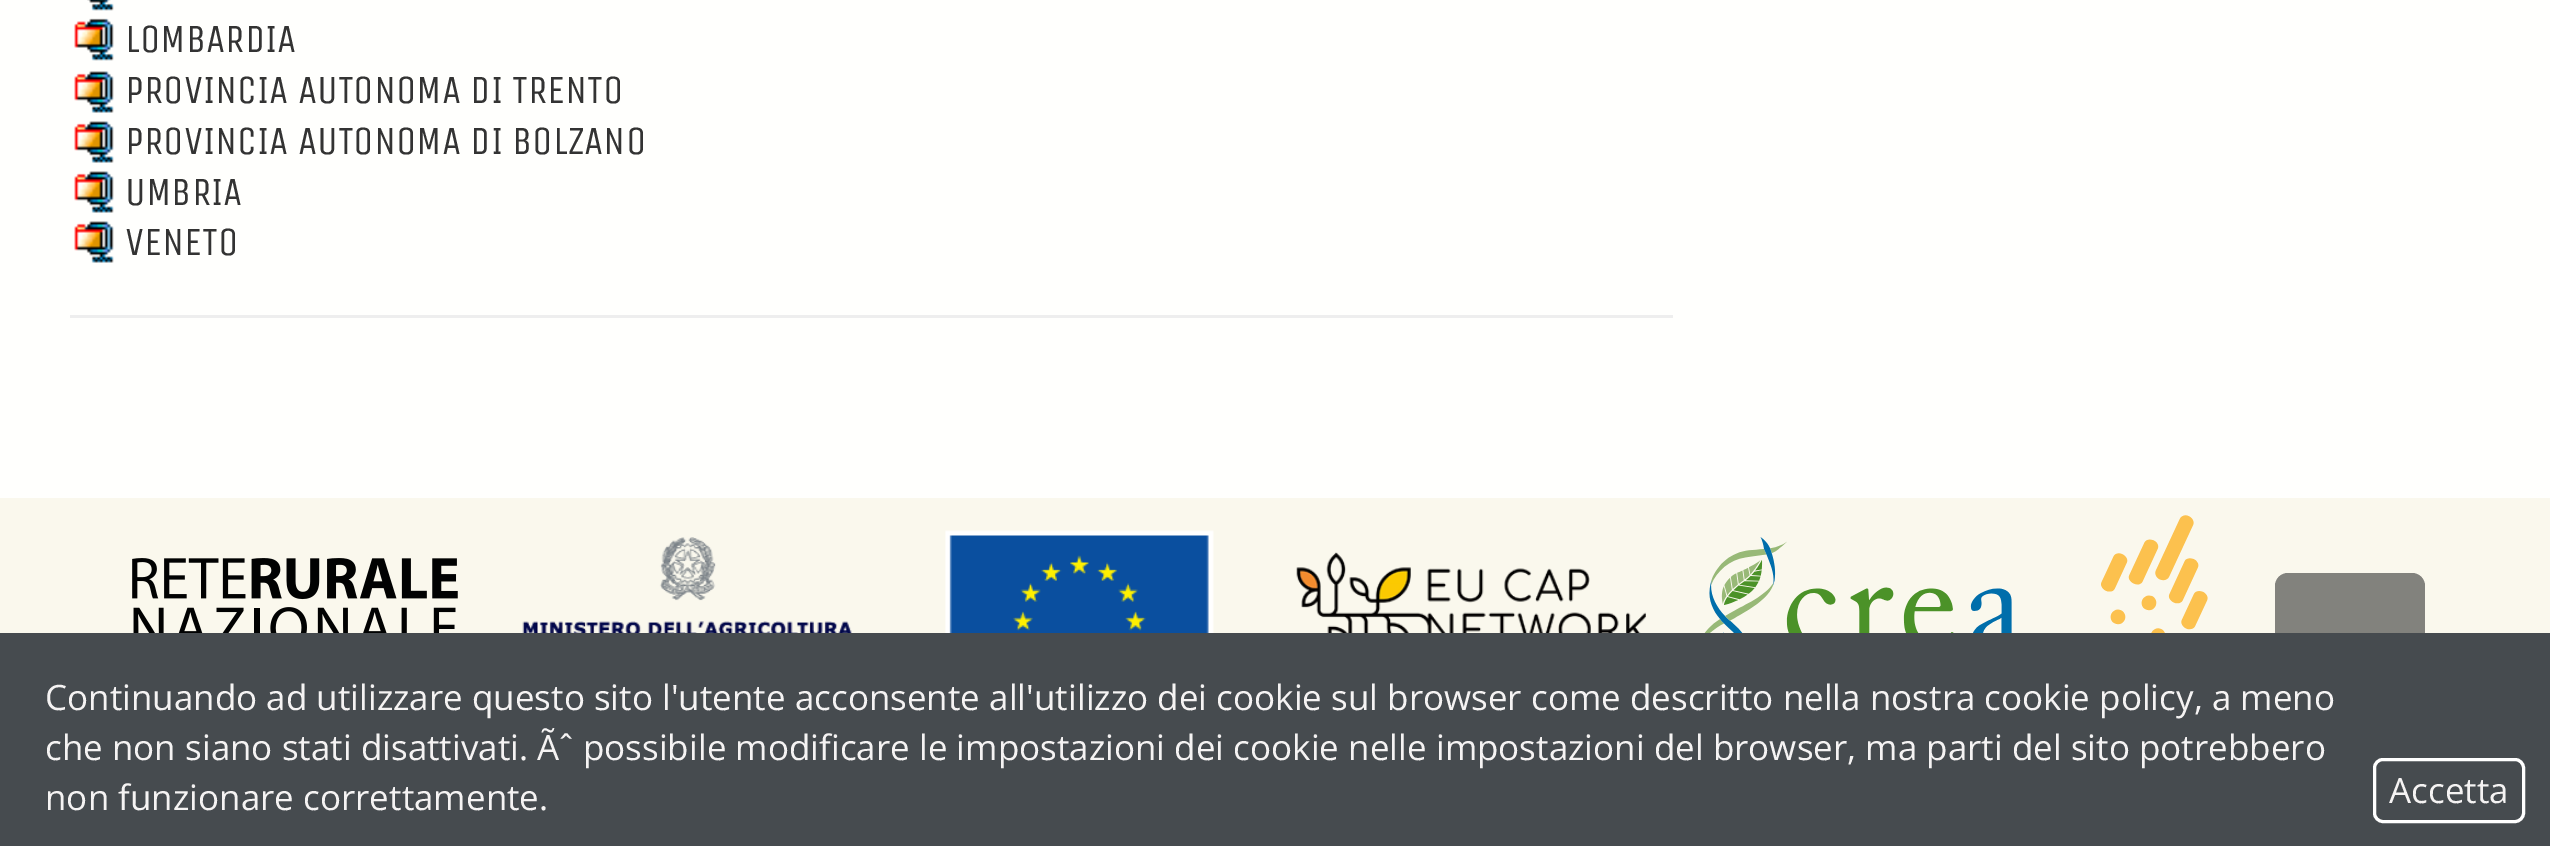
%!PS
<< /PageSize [2550 846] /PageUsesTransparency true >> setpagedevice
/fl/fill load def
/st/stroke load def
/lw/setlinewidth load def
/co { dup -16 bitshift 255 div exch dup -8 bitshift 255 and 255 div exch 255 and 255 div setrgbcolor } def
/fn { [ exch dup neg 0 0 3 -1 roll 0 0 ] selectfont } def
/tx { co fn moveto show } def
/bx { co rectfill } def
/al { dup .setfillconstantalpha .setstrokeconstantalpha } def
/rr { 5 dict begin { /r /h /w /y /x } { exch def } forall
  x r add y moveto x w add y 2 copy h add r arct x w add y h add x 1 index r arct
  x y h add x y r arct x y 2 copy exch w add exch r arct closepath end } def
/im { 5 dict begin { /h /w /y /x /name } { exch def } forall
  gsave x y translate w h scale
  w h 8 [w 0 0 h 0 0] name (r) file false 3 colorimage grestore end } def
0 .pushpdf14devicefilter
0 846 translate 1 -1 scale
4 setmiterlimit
0 0 2550 846 16#FFFFFD bx
(media/1.raw) 87 0 27 11 im
(media/2.raw) 74 18 40 43 im
(media/3.raw) 74 71 40 42 im
(media/4.raw) 74 121 40 42 im
(media/3.raw) 74 171 40 42 im
(media/3.raw) 74 221 40 42 im
70 315 1603 3 16#EEEEEE bx
0 498 2550 135 16#FAF8ED bx
(media/5.raw) 132 558 326 75 im
(media/6.raw) 522 537 330 96 im
(media/7.raw) 945 530 269 103 im
(media/8.raw) 1296 552 350 81 im
(media/9.raw) 1704 537 308 96 im
(media/10.raw) 2101 515 107 118 im
0.6 al
16#323433 co
2275 573 150 150 13 rr fl
1 al
0 633 2550 213 16#464B4F bx
16#FFFFFF co
3 lw
2374.5 759.5 149 62 8.5 rr st
(LOMBARDIA) 125 52 /UnicaOne-Regular 40 16#333333 tx
(PROVINCIA AUTONOMA DI TRENTO) 125 103 /UnicaOne-Regular 40 16#333333 tx
(PROVINCIA AUTONOMA DI BOLZANO) 125 154 /UnicaOne-Regular 40 16#333333 tx
(UMBRIA) 125 205 /UnicaOne-Regular 40 16#333333 tx
(VENETO) 125 255 /UnicaOne-Regular 40 16#333333 tx
(Continuando ad utilizzare questo sito l'utente acconsente all'utilizzo dei cookie sul browser come descritto nella nostra cookie policy, a meno) 45 710 /OpenSans-Regular 35 16#F5F3F3 tx
(che non siano stati disattivati. Ãˆ possibile modificare le impostazioni dei cookie nelle impostazioni del browser, ma parti del sito potrebbero) 45 760 /OpenSans-Regular 35 16#F5F3F3 tx
(non funzionare correttamente.) 45 810 /OpenSans-Regular 35 16#F5F3F3 tx
(Accetta) 2389 803 /OpenSans-Regular 35 16#F5F3F3 tx
.poppdf14devicefilter showpage
